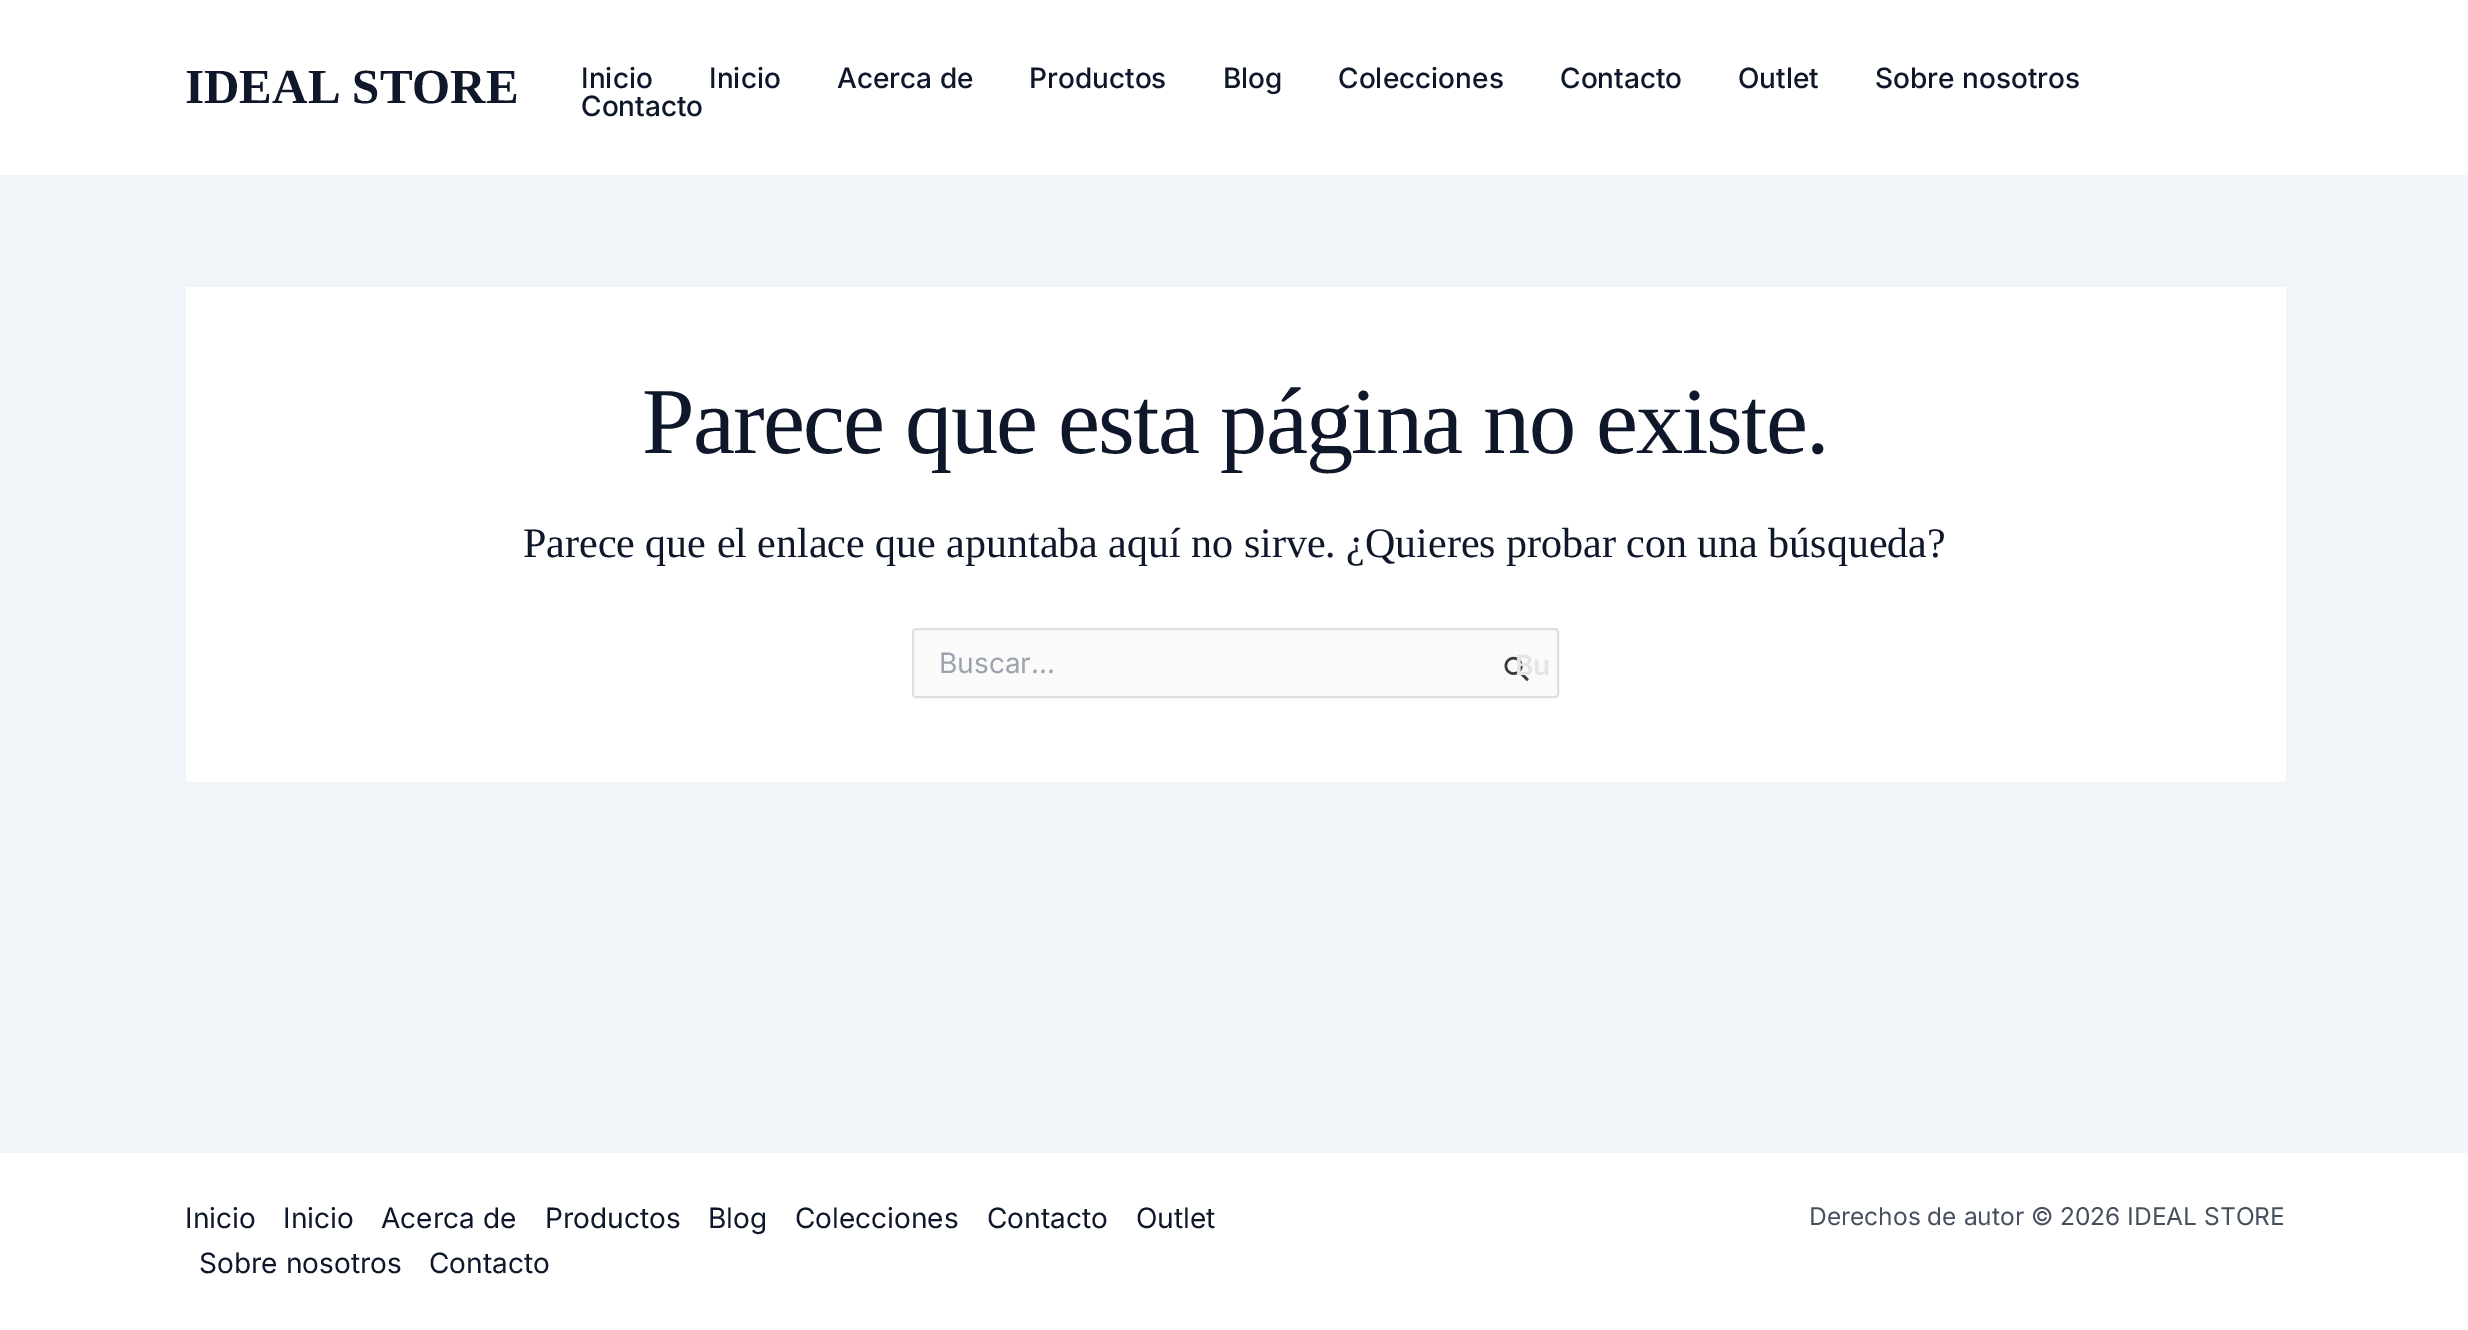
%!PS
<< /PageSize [2468 1330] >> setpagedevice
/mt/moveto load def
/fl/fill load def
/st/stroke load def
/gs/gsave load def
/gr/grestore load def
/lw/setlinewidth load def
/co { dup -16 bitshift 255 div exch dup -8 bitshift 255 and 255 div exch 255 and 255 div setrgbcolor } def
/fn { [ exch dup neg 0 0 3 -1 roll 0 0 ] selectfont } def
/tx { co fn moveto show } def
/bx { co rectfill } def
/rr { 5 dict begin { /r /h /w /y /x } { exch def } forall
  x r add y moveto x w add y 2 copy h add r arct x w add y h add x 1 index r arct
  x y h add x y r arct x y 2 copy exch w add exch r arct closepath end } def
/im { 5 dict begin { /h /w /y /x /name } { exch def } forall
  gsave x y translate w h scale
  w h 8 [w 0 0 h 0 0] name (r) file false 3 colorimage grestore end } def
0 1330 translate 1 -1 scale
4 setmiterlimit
0 0 2468 1330 16#F1F5F9 bx
0 0 2468 175 16#FFFFFF bx
186 287 2100 495 16#FFFFFF bx
16#FAFAFA co
913 629 645 68 3 rr gs fl gr
16#DFDFDF co
2 lw
st
(media/1.raw) 1504 656 25 26 im
0 1153 2468 177 16#FFFFFF bx
(IDEAL STORE) 185 103 /LiberationSerif-Bold 49 16#0F172A tx
(Inicio) 581 88 /Inter-Medium 28 16#0F172A tx
(Inicio) 709 88 /Inter-Medium 28 16#0F172A tx
(Acerca de) 837 88 /Inter-Medium 28 16#0F172A tx
(Productos) 1029 88 /Inter-Medium 28 16#0F172A tx
(Blog) 1223 88 /Inter-Medium 28 16#0F172A tx
(Colecciones) 1338 88 /Inter-Medium 28 16#0F172A tx
(Contacto) 1560 88 /Inter-Medium 28 16#0F172A tx
(Outlet) 1738 88 /Inter-Medium 28 16#0F172A tx
(Sobre nosotros) 1875 88 /Inter-Medium 28 16#0F172A tx
(Contacto) 581 116 /Inter-Medium 28 16#0F172A tx
/LiberationSerif-Regular 94.5 fn
642 453 mt -1.75 0 (Parece que esta página no existe.) ashow
(Parece que el enlace que apuntaba aquí no sirve. ¿Quieres probar con una búsqueda?) 523 557 /LiberationSerif-Regular 42 16#0F172A tx
(Buscar...) 939 673 /Inter-Regular 28 16#9CA3AF tx
(Bu) 1515 675 /Inter-SemiBold 28 16#E4E4E4 tx
(Inicio) 185 1228 /Inter-Regular 28 16#0F172A tx
(Inicio) 283 1228 /Inter-Regular 28 16#0F172A tx
(Acerca de) 381 1228 /Inter-Regular 28 16#0F172A tx
(Productos) 545 1228 /Inter-Regular 28 16#0F172A tx
(Blog) 708 1228 /Inter-Regular 28 16#0F172A tx
(Colecciones) 795 1228 /Inter-Regular 28 16#0F172A tx
(Contacto) 987 1228 /Inter-Regular 28 16#0F172A tx
(Outlet) 1136 1228 /Inter-Regular 28 16#0F172A tx
(Sobre nosotros) 199 1273 /Inter-Regular 28 16#0F172A tx
(Contacto) 429 1273 /Inter-Regular 28 16#0F172A tx
(Derechos de autor © 2026 IDEAL STORE) 1809 1225 /Inter-Regular 24.5 16#454F5E tx
showpage
